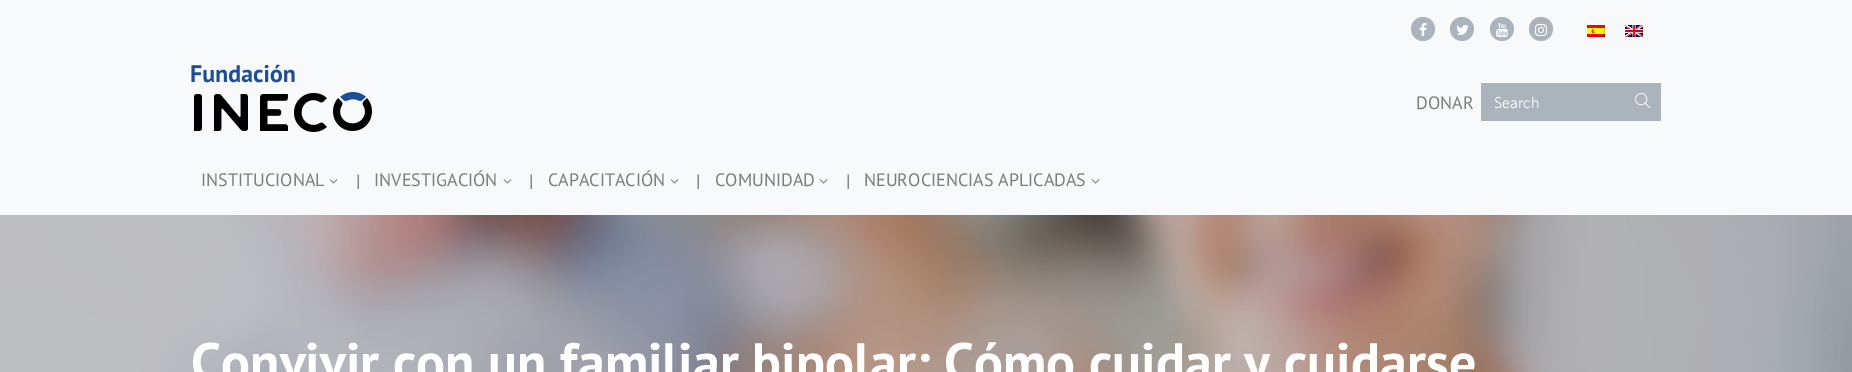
%!PS
<< /PageSize [1852 372] >> setpagedevice
/fl/fill load def
/co { dup -16 bitshift 255 div exch dup -8 bitshift 255 and 255 div exch 255 and 255 div setrgbcolor } def
/fn { [ exch dup neg 0 0 3 -1 roll 0 0 ] selectfont } def
/tx { co fn moveto show } def
/bx { co rectfill } def
/ci { newpath 0 360 arc closepath } def
/im { 5 dict begin { /h /w /y /x /name } { exch def } forall
  gsave x y translate w h scale
  w h 8 [w 0 0 h 0 0] name (r) file false 3 colorimage grestore end } def
0 372 translate 1 -1 scale
4 setmiterlimit
0 0 1852 372 16#F8F9FA bx
16#ABB4BD co
1423 29 12 ci fl
(media/1.raw) 1419 23 8 13 im
1462 29 12 ci fl
(media/2.raw) 1456 25 13 10 im
1502 29 12 ci fl
(media/3.raw) 1496 23 12 14 im
1541 29 12 ci fl
(media/4.raw) 1535 24 12 12 im
(media/5.raw) 1587 25 18 12 im
(media/6.raw) 1625 25 18 12 im
(media/7.raw) 191 64 181 68 im
1481 83 180 38 16#ABB4BD bx
(media/8.raw) 1635 93 16 16 im
(media/9.raw) 329 179 9 5 im
(media/9.raw) 503 179 9 5 im
(media/9.raw) 670 179 9 5 im
(media/9.raw) 819 179 9 5 im
(media/9.raw) 1091 179 9 5 im
(media/10.raw) 0 215 1852 157 im
(DONAR) 1416 109 /PTSans-Regular 18 16#7C7D7D tx
(Search) 1494 108 /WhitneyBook-Regular 16 16#FFFFFF tx
(INSTITUCIONAL) 201 186 /PTSans-Regular 18 16#7C7D7D tx
(|) 356 186 /WhitneyBook-Regular 16 16#212529 tx
(INVESTIGACIÓN) 374 186 /PTSans-Regular 18 16#7C7D7D tx
(|) 529 186 /WhitneyBook-Regular 16 16#212529 tx
(CAPACITACIÓN) 548 186 /PTSans-Regular 18 16#7C7D7D tx
(|) 696 186 /WhitneyBook-Regular 16 16#212529 tx
(COMUNIDAD) 715 186 /PTSans-Regular 18 16#7C7D7D tx
(|) 846 186 /WhitneyBook-Regular 16 16#212529 tx
(NEUROCIENCIAS APLICADAS) 864 186 /PTSans-Regular 18 16#7C7D7D tx
(Convivir con un familiar bipolar: Cómo cuidar y cuidarse) 191 381 /PTSans-Bold 54 16#FFFFFF tx
showpage
